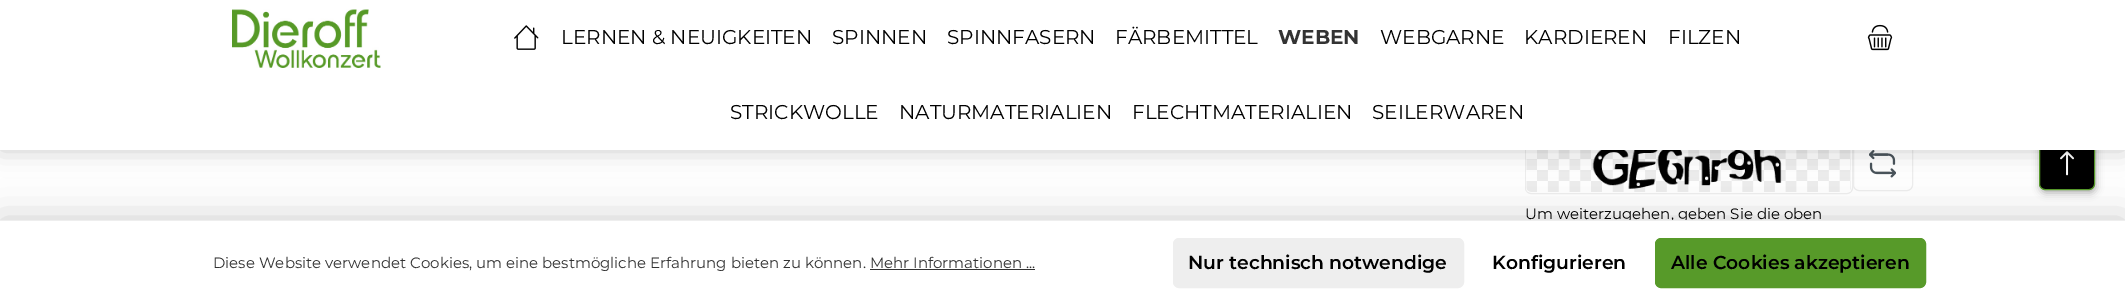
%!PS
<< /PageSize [2125 303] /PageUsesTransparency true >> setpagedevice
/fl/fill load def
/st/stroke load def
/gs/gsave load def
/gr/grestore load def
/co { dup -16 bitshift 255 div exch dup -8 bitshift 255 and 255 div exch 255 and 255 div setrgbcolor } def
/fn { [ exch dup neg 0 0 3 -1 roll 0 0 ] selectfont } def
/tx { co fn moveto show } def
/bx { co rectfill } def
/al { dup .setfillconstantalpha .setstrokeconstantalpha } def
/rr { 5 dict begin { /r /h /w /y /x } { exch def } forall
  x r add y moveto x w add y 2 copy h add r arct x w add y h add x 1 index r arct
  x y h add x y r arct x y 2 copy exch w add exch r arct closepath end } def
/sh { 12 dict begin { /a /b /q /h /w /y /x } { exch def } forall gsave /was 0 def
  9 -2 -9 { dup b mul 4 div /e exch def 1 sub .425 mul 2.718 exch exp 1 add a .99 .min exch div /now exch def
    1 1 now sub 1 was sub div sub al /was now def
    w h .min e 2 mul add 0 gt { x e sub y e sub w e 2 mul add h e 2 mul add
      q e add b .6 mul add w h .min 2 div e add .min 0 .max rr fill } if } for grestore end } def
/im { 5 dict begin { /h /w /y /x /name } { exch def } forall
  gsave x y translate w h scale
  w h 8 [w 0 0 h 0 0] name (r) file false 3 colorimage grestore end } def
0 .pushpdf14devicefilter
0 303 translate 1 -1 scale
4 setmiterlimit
0 0 2125 303 16#FFFFFF bx
16#000000 co
2040 136 56 57 6 4 .3 sh
2039.5 134.5 55 55 5.5 rr gs fl gr
16#579A29 co
st
(media/4.raw) 2060 151 14 25 im
16#EEEEEE co
1525.5 136.5 327 57 5.5 rr st
(media/5.raw) 1526 150 325 42 im
1853.5 139.5 59 51 5.5 rr st
(media/6.raw) 1869 150 27 28 im
16#000000 co
0 0 2125 150 0 12.5 .2 sh
0 0 2125 150 16#FFFFFF bx
(media/1.raw) 232 9 149 59 im
(media/2.raw) 1867 24 26 27 im
(media/3.raw) 514 25 25 25 im
16#000000 co
0 220 2125 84 0 19 .2 sh
(LERNEN & NEUIGKEITEN) 561 44 /Montserrat-Thin 20 16#000000 tx
(SPINNEN) 832 44 /Montserrat-Thin 20 16#000000 tx
(SPINNFASERN) 947 44 /Montserrat-Thin 20 16#000000 tx
(FÄRBEMITTEL) 1115 44 /Montserrat-Thin 20 16#000000 tx
(WEBEN) 1278 44 /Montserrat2-Thin 20 16#333333 tx
(WEBGARNE) 1380 44 /Montserrat-Thin 20 16#000000 tx
(KARDIEREN) 1524 44 /Montserrat-Thin 20 16#000000 tx
(FILZEN) 1668 44 /Montserrat-Thin 20 16#000000 tx
(STRICKWOLLE) 730 119 /Montserrat-Thin 20 16#000000 tx
(NATURMATERIALIEN) 899 119 /Montserrat-Thin 20 16#000000 tx
(FLECHTMATERIALIEN) 1132 119 /Montserrat-Thin 20 16#000000 tx
(SEILERWAREN) 1372 119 /Montserrat-Thin 20 16#000000 tx
(Um weiterzugehen, geben Sie die oben) 1525 219 /Montserrat-Thin 15 16#000000 tx
0 221 2125 82 16#FFFFFF bx
0 220 2125 1 16#EEEEEE bx
(Diese Website verwendet Cookies, um eine bestmögliche Erfahrung bieten zu können. Mehr Informationen ...) 213 268 /Montserrat-Thin 15 16#333333 tx
870 269 165 1 16#333333 bx
16#EEEEEE co
1173.5 238.5 290 49 5.5 rr gs fl gr
st
(Nur technisch notwendige) 1188 269 /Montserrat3-Thin 18.75 16#000000 tx
(Konfigurieren) 1492 269 /Montserrat3-Thin 18.75 16#000000 tx
16#579A29 co
1655.5 238.5 270 49 5.5 rr gs fl gr
st
(Alle Cookies akzeptieren) 1671 269 /Montserrat3-Thin 18.75 16#000000 tx
.poppdf14devicefilter showpage
